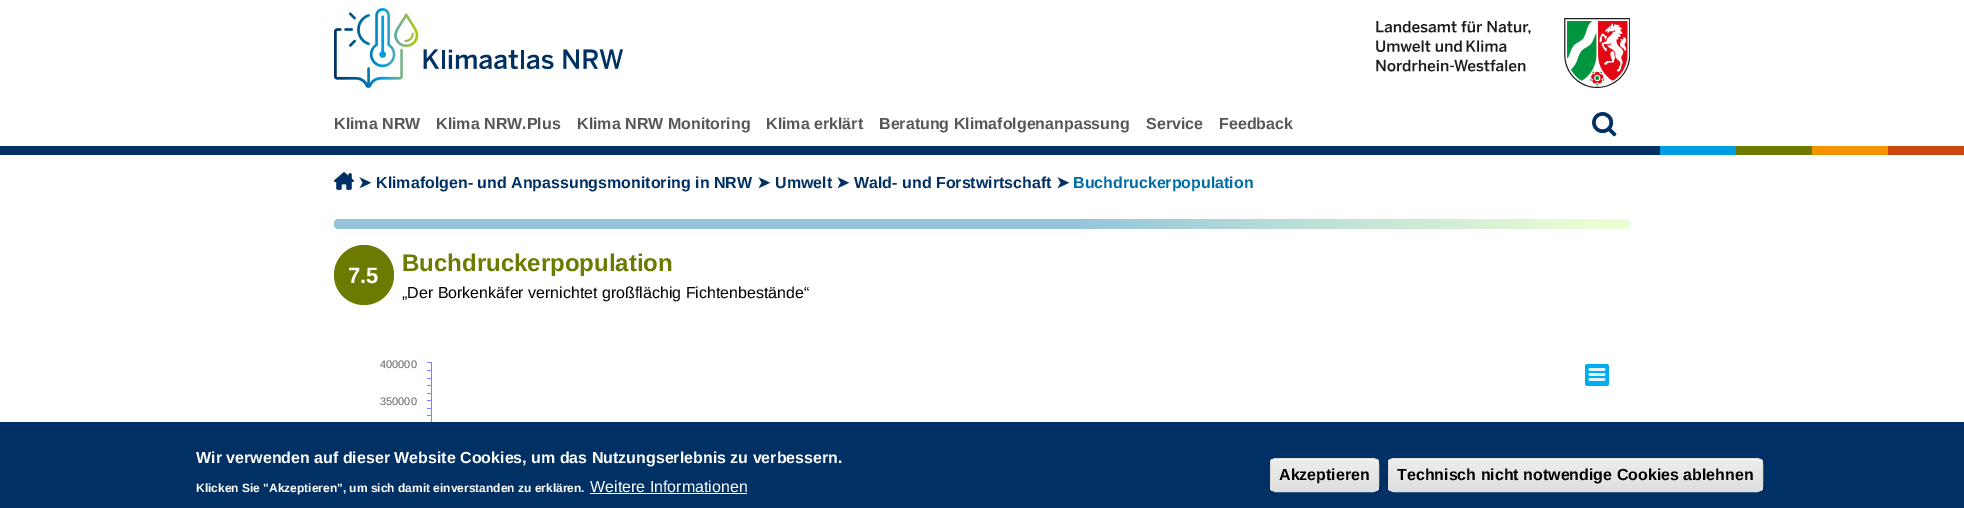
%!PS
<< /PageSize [1964 508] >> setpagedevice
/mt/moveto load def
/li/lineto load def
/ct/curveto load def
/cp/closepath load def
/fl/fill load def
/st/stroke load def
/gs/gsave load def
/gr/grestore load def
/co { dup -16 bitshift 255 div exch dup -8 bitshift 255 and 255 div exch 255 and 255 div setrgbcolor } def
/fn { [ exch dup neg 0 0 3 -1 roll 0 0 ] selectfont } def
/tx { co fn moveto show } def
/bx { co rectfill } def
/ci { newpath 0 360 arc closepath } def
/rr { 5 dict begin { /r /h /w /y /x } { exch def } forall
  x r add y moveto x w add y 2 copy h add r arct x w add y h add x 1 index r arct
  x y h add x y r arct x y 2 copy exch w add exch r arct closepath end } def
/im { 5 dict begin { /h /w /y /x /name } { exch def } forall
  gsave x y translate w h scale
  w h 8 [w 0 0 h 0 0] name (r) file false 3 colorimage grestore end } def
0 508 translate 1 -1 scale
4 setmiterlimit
0 0 1964 508 16#FFFFFF bx
(media/1.raw) 334 8 289 80 im
(media/2.raw) 1376 18 254 70 im
(media/3.raw) 1592 112 25 25 im
0 146 1660 9 16#003064 bx
1660 146 76 9 16#009EE0 bx
1736 146 76 9 16#6C7A00 bx
1812 146 76 9 16#F29400 bx
1888 146 76 9 16#CC480F bx
(media/4.raw) 334 172 20 18 im
gs 334 219 1296 10 5 rr clip newpath
<< /ShadingType 2 /ColorSpace /DeviceRGB /Coords [334 224 1630 224] /Extend [true true] /Function << /FunctionType 3 /Domain [0 1] /Functions [<< /FunctionType 2 /Domain [0 1] /C0 [.588 .773 .859] /C1 [.588 .773 .859] /N 1 >> << /FunctionType 2 /Domain [0 1] /C0 [.588 .773 .859] /C1 [.925 1 .831] /N 1 >> << /FunctionType 2 /Domain [0 1] /C0 [.925 1 .831] /C1 [.925 1 .831] /N 1 >>] /Bounds [.57 .98] /Encode [0 1 0 1 0 1] >> >> shfill gr
16#6C7A00 co
364 275 30 ci fl
(media/5.raw) 427 362 1182 60 im
0 422 1964 86 16#003064 bx
590 493 157 1 16#FFFFFF bx
gs
1270 458 109 34 6 rr clip newpath
gs 1270 459 mt 1379 459 li 1379 491 li 1270 491 li cp clip newpath
<< /ShadingType 2 /ColorSpace /DeviceRGB /Coords [1325 459 1325 491] /Extend [true true] /Function << /FunctionType 3 /Domain [0 1] /Functions [<< /FunctionType 2 /Domain [0 1] /C0 [.929 .929 .929] /C1 [.929 .929 .929] /N 1 >> << /FunctionType 2 /Domain [0 1] /C0 [.929 .929 .929] /C1 [.875 .875 .875] /N 1 >>] /Bounds [.05] /Encode [0 1 0 1] >> >> shfill gr
gr
1276 460 mt 1373 460 li 1376 460 1378 462 1378 465 ct 1378 455 1362 459 1357 459 ct 1292 459 li 1287 459 1271 455 1271 465 ct 1271 462 1273 460 1276 460 ct cp fl
16#DCDCDC co
1270.5 458.5 108 33 5.5 rr st
gs
1388 458 375 34 6 rr clip newpath
gs 1388 459 mt 1763 459 li 1763 491 li 1388 491 li cp clip newpath
<< /ShadingType 2 /ColorSpace /DeviceRGB /Coords [1576 459 1576 491] /Extend [true true] /Function << /FunctionType 3 /Domain [0 1] /Functions [<< /FunctionType 2 /Domain [0 1] /C0 [.929 .929 .929] /C1 [.929 .929 .929] /N 1 >> << /FunctionType 2 /Domain [0 1] /C0 [.929 .929 .929] /C1 [.875 .875 .875] /N 1 >>] /Bounds [.05] /Encode [0 1 0 1] >> >> shfill gr
gr
16#FFFFFF co
1394 460 mt 1757 460 li 1760 460 1762 462 1762 465 ct 1762 464 li 1762 461 1760 459 1757 459 ct 1394 459 li 1391 459 1389 461 1389 464 ct 1389 465 li 1389 462 1391 460 1394 460 ct cp fl
16#DCDCDC co
1388.5 458.5 374 33 5.5 rr st
(Klima NRW) 334 129 /LiberationSans-Bold 16 16#575756 tx
(Klima NRW.Plus) 436 129 /LiberationSans-Bold 16 16#575756 tx
(Klima NRW Monitoring) 577 129 /LiberationSans-Bold 16 16#575756 tx
(Klima erklärt) 766 129 /LiberationSans-Bold 16 16#575756 tx
(Beratung Klimafolgenanpassung) 879 129 /LiberationSans-Bold 16 16#575756 tx
(Service) 1146 129 /LiberationSans-Bold 16 16#575756 tx
(Feedback) 1219 129 /LiberationSans-Bold 16 16#575756 tx
(➤) 358 188 /DejaVuSans-Bold 16 16#003064 tx
(Klimafolgen- und Anpassungsmonitoring in NRW) 376 188 /LiberationSans-Bold 16 16#003064 tx
(➤) 757 188 /DejaVuSans-Bold 16 16#003064 tx
(Umwelt) 775 188 /LiberationSans-Bold 16 16#003064 tx
(➤) 836 188 /DejaVuSans-Bold 16 16#003064 tx
(Wald- und Forstwirtschaft) 854 188 /LiberationSans-Bold 16 16#003064 tx
(➤) 1056 188 /DejaVuSans-Bold 16 16#003064 tx
(Buchdruckerpopulation) 1073 188 /LiberationSans-Bold 16 16#006DA7 tx
(7.5) 348 283 /LiberationSans-Bold 22 16#FFFFFF tx
(Buchdruckerpopulation) 402 271 /LiberationSans-Bold 24 16#6C7A00 tx
(„Der Borkenkäfer vernichtet großflächig Fichtenbestände“) 402 298 /LiberationSans-Regular 16 16#000000 tx
(400000) 380 368 /LiberationSans-Regular 11 16#666666 tx
(350000) 380 405 /LiberationSans-Regular 11 16#666666 tx
(Wir verwenden auf dieser Website Cookies, um das Nutzungserlebnis zu verbessern.) 196 463 /LiberationSans-Bold 16 16#FFFFFF tx
(Klicken Sie "Akzeptieren", um sich damit einverstanden zu erklären.) 196 492 /LiberationSans-Bold 12 16#FFFFFF tx
(Weitere Informationen) 590 492 /LiberationSans-Regular 16 16#FFFFFF tx
(Akzeptieren) 1279 480 /LiberationSans-Bold 16 16#000000 tx
(Technisch nicht notwendige Cookies ablehnen) 1397 480 /LiberationSans-Bold 16 16#000000 tx
showpage
